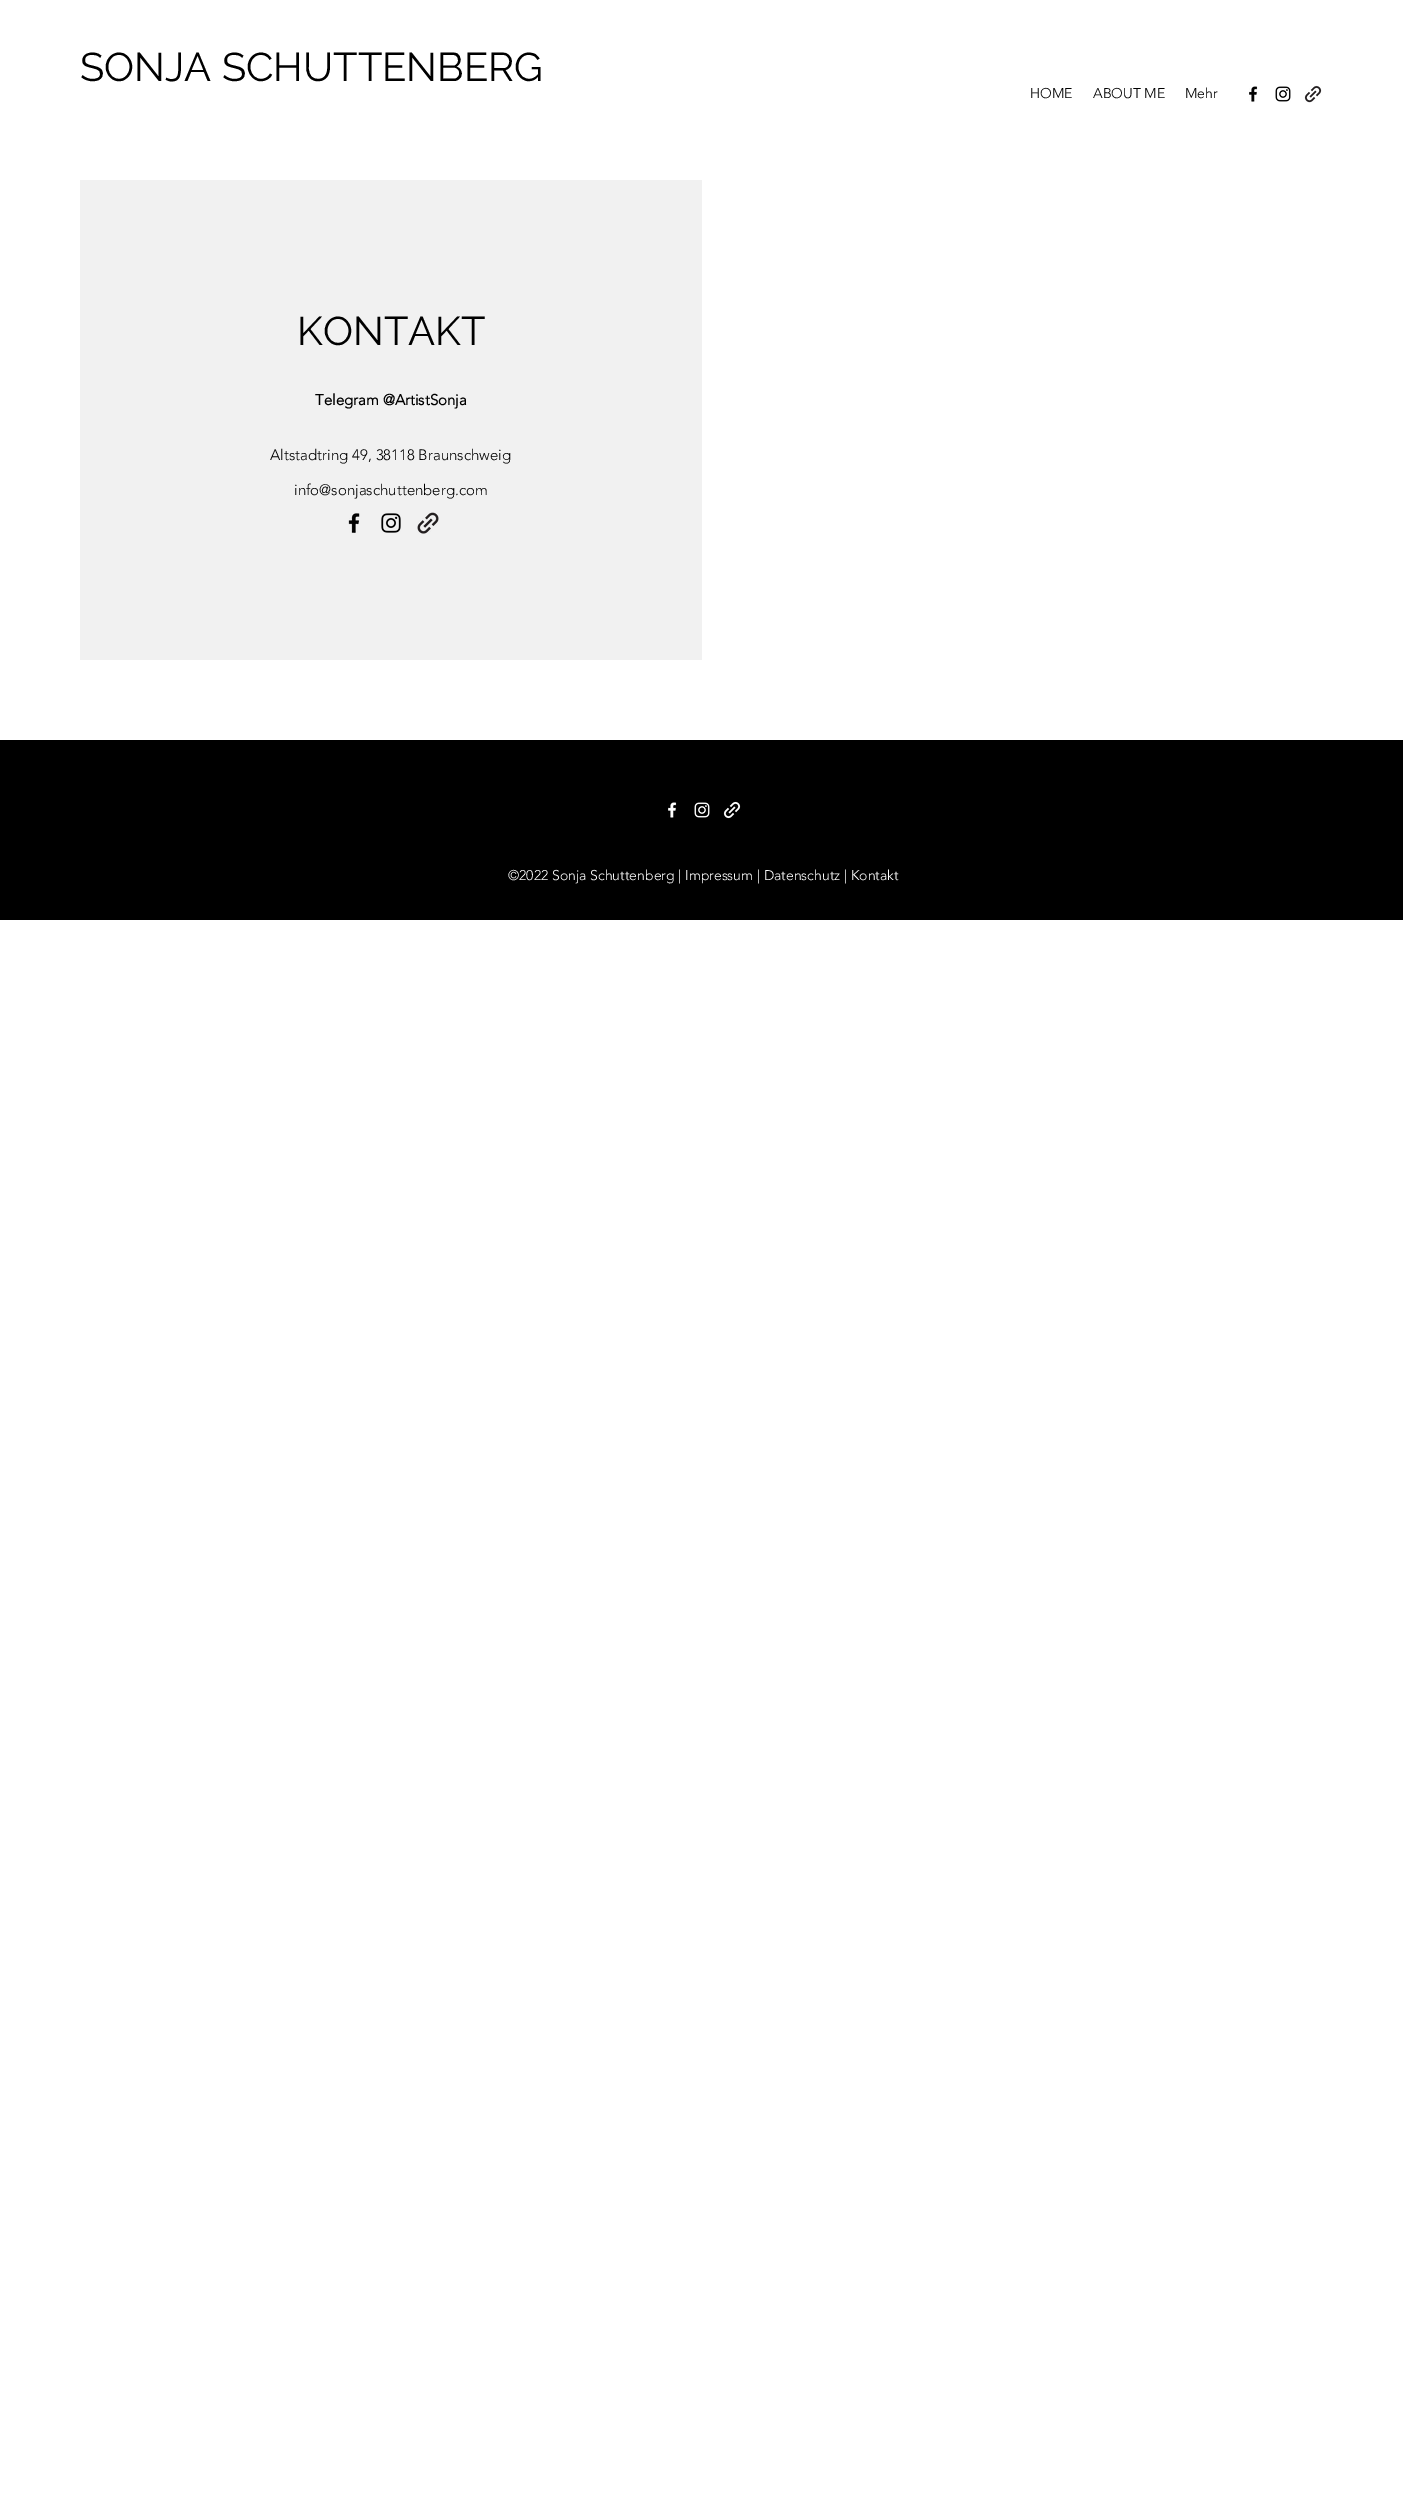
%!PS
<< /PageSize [1403 2511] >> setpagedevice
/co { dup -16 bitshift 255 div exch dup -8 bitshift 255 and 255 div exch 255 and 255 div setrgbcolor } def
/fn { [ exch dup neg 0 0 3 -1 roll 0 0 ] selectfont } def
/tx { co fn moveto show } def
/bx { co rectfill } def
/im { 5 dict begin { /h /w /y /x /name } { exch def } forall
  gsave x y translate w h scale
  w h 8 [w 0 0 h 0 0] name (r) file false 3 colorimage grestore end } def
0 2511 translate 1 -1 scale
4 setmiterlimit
0 0 1403 2511 16#FFFFFF bx
(media/1.raw) 1249 86 9 16 im
(media/2.raw) 1275 86 16 16 im
(media/3.raw) 1304 85 18 18 im
80 180 622 480 16#F1F1F1 bx
(media/4.raw) 348 513 12 20 im
(media/5.raw) 381 513 20 20 im
(media/6.raw) 417 512 22 22 im
0 740 1403 180 16#000000 bx
(media/7.raw) 668 802 9 16 im
(media/8.raw) 694 802 16 16 im
(media/9.raw) 723 801 18 18 im
(SONJA SCHUTTENBERG) 80 81 /Raleway-Regular 40 16#000000 tx
(HOME) 1030 98 /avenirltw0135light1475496-Light 14 16#000000 tx
(ABOUT ME) 1093 98 /avenirltw0135light1475496-Light 14 16#000000 tx
(Mehr) 1185 98 /avenirltw0135light1475496-Light 14 16#000000 tx
(KONTAKT) 297 345 /Raleway-Regular 40 16#000000 tx
(Telegram @ArtistSonja) 315 405 /avenirltw0135light1475496-Bold 15 16#000000 tx
(Altstadtring 49, 38118 Braunschweig) 270 460 /avenirltw0135light1475496-Light 15 16#000000 tx
(info@sonjaschuttenberg.com) 294 495 /avenirltw0135light1475496-Light 15 16#000000 tx
(©2022 Sonja Schuttenberg | Impressum | Datenschutz | Kontakt) 508 880 /avenirltw0135light1475496-Light 14 16#FFFFFF tx
showpage
